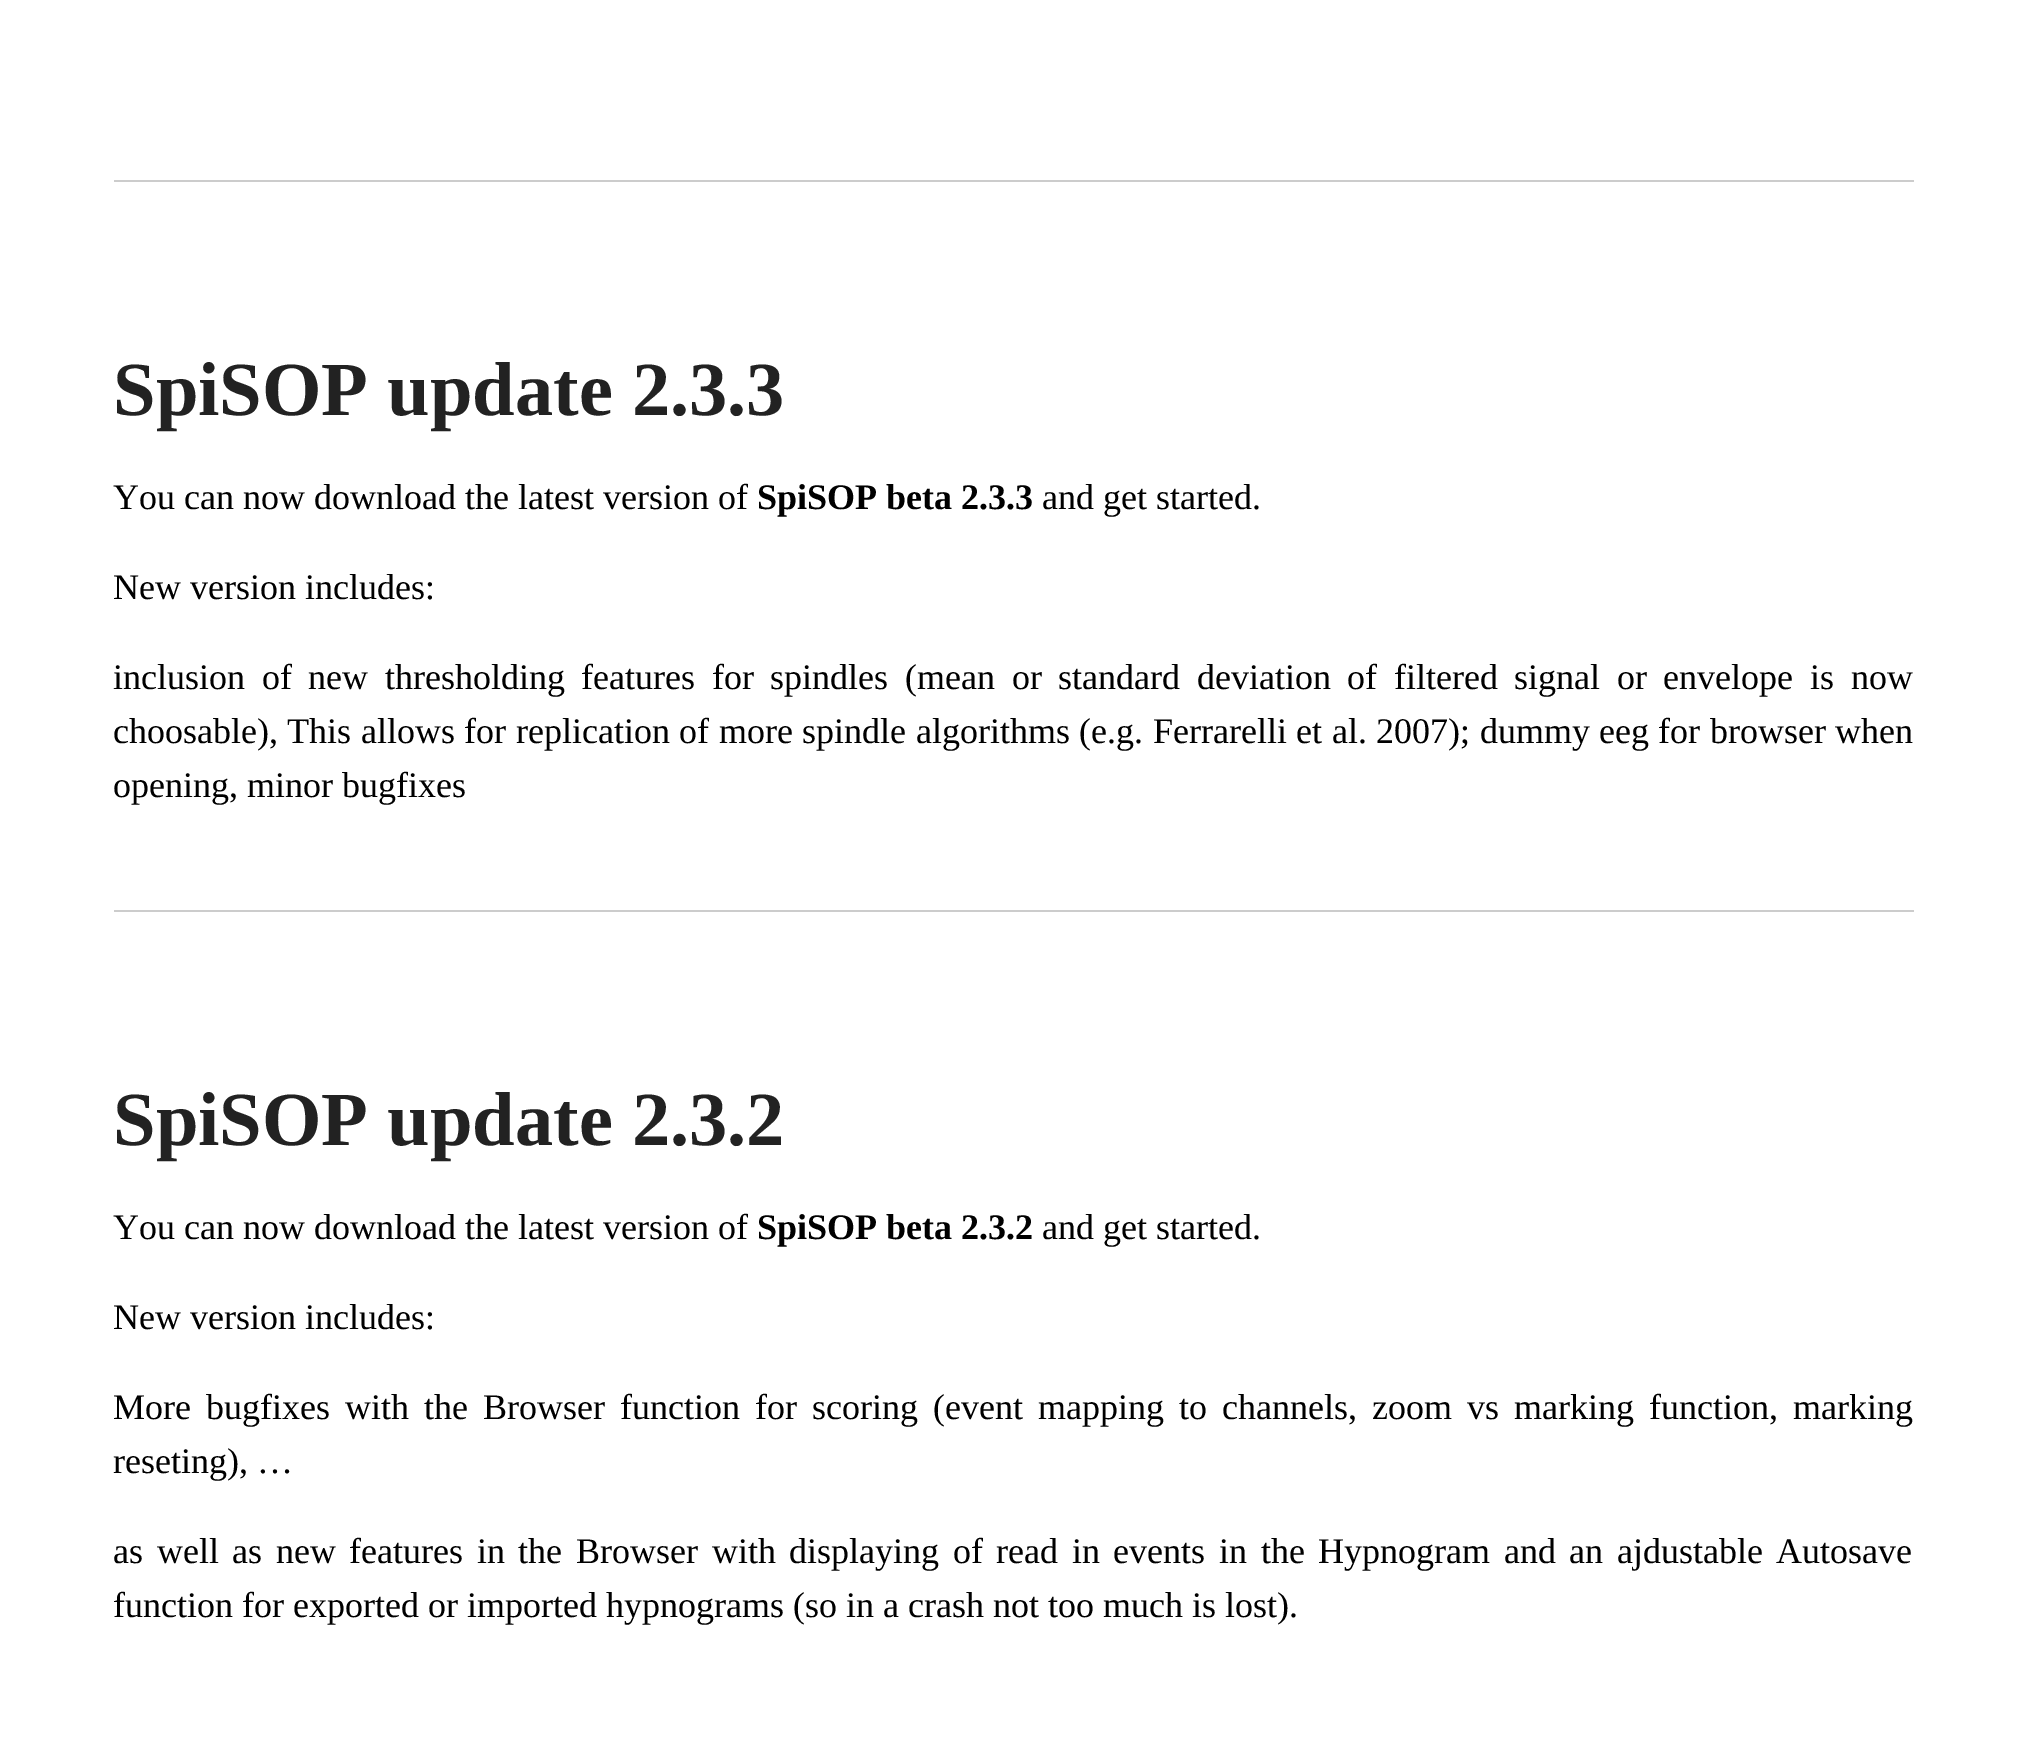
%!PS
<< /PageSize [2025 1757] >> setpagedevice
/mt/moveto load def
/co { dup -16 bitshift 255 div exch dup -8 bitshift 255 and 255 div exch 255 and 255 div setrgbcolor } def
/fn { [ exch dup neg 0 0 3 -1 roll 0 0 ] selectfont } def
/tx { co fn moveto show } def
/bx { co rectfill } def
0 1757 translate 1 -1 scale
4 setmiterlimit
0 0 2025 1757 16#FFFFFF bx
114 180 1800 2 16#CCCCCC bx
114 910 1800 2 16#CCCCCC bx
(SpiSOP update 2.3.3) 113 415 /LiberationSerif-Bold 76.5 16#222222 tx
(You can now download the latest version of) 113 509 /LiberationSerif-Regular 36 16#000000 tx
(SpiSOP beta 2.3.3) 757 509 /LiberationSerif-Bold 36 16#000000 tx
(and get started.) 1042 509 /LiberationSerif-Regular 36 16#000000 tx
(New version includes:) 113 599 /LiberationSerif-Regular 36 16#000000 tx
113 689 mt 7.6 0 32 (inclusion of new thresholding features for spindles \(mean or standard deviation of filtered signal or envelope is now) widthshow
113 743 mt .5 0 32 (choosable\), This allows for replication of more spindle algorithms \(e.g. Ferrarelli et al. 2007\); dummy eeg for browser when) widthshow
(opening, minor bugfixes) 113 797 /LiberationSerif-Regular 36 16#000000 tx
(SpiSOP update 2.3.2) 113 1145 /LiberationSerif-Bold 76.5 16#222222 tx
(You can now download the latest version of) 113 1239 /LiberationSerif-Regular 36 16#000000 tx
(SpiSOP beta 2.3.2) 757 1239 /LiberationSerif-Bold 36 16#000000 tx
(and get started.) 1042 1239 /LiberationSerif-Regular 36 16#000000 tx
(New version includes:) 113 1329 /LiberationSerif-Regular 36 16#000000 tx
113 1419 mt 6 0 32 (More bugfixes with the Browser function for scoring \(event mapping to channels, zoom vs marking function, marking) widthshow
(reseting\), …) 113 1473 /LiberationSerif-Regular 36 16#000000 tx
113 1563 mt 4.6 0 32 (as well as new features in the Browser with displaying of read in events in the Hypnogram and an ajdustable Autosave) widthshow
(function for exported or imported hypnograms \(so in a crash not too much is lost\).) 113 1617 /LiberationSerif-Regular 36 16#000000 tx
showpage
